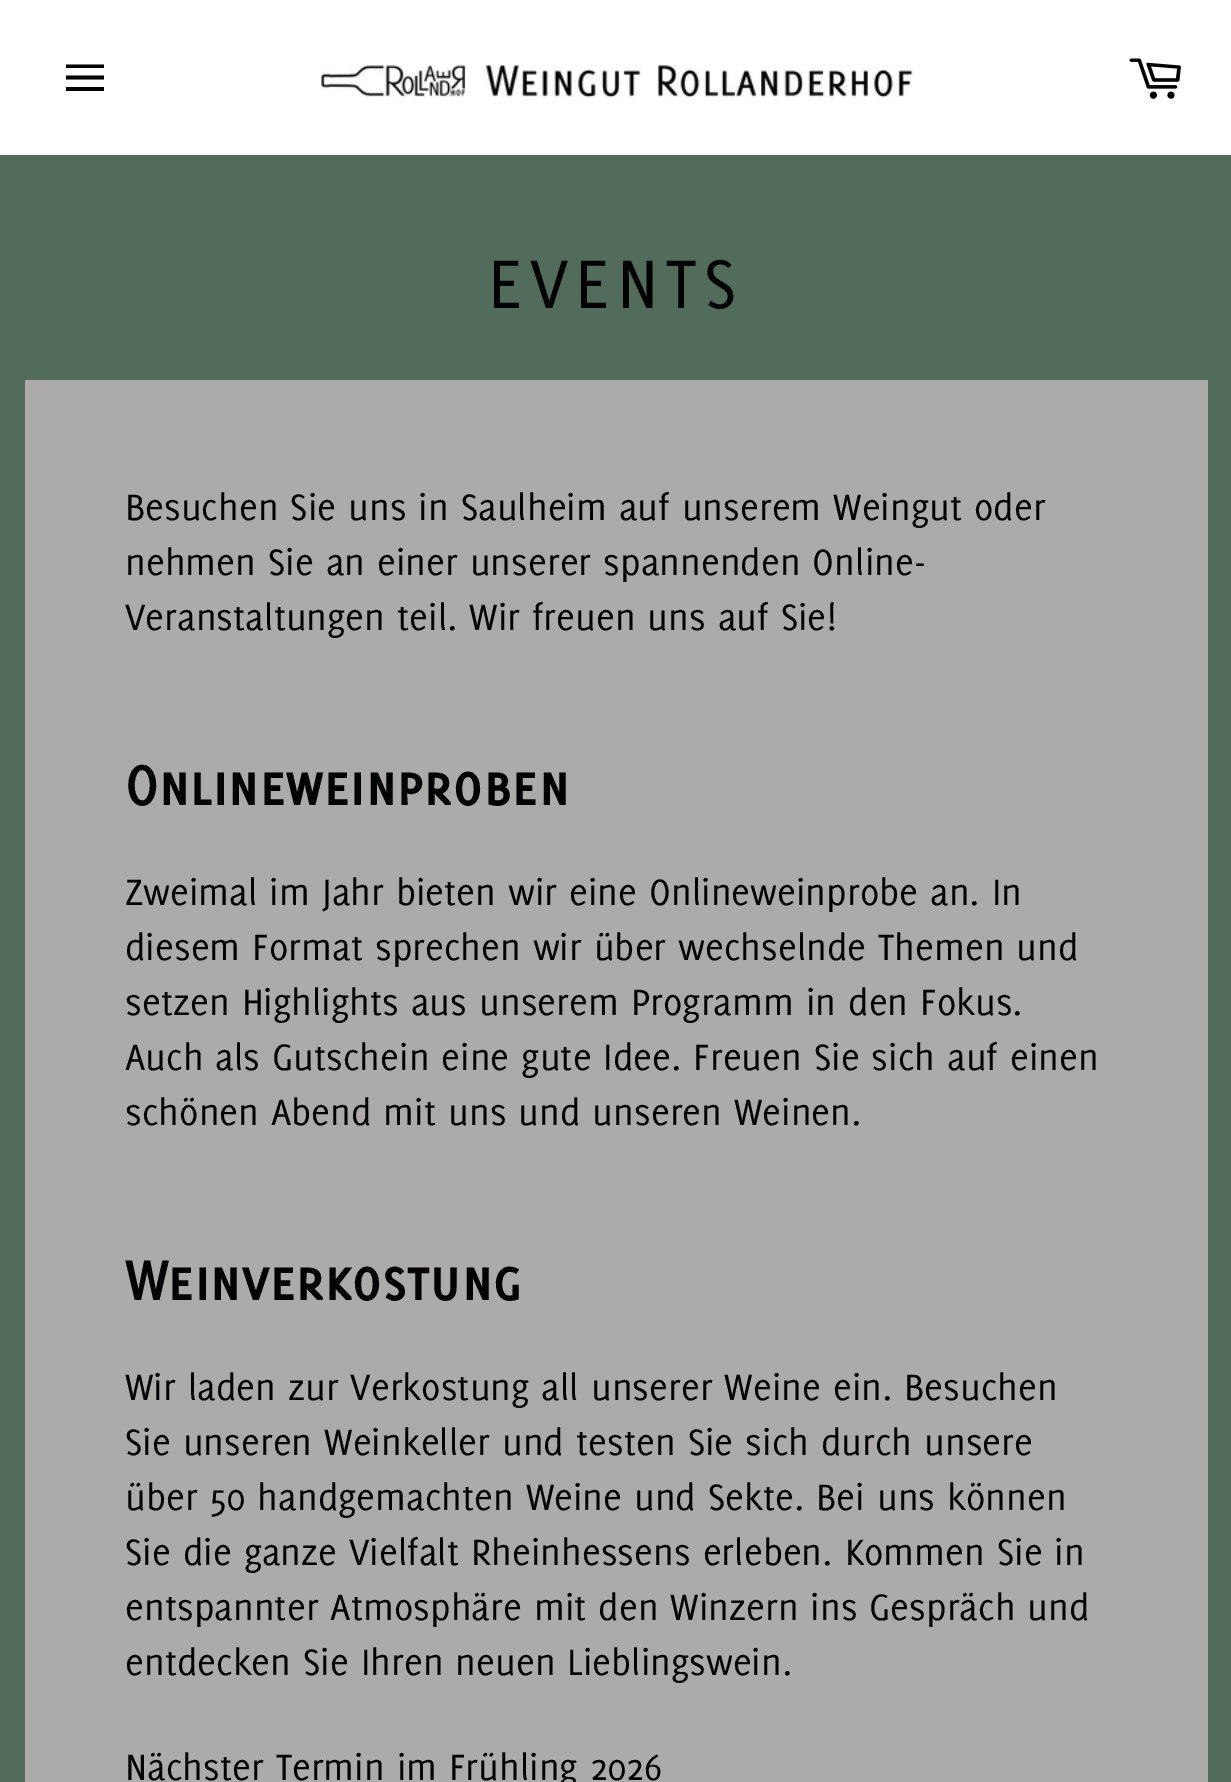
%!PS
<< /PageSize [1231 1782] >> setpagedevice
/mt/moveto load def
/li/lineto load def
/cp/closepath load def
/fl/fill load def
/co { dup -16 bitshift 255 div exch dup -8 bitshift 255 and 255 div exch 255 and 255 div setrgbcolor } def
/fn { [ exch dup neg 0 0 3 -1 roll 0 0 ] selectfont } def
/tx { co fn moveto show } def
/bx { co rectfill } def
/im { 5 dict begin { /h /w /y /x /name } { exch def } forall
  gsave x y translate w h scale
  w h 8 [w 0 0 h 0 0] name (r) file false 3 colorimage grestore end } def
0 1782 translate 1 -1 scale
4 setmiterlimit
0 0 1231 1782 16#516C5A bx
0 0 1231 155 16#FFFFFF bx
16#030303 co
66 75.5 mt 104 75.5 li 104 79.5 li 66 79.5 li cp 66 64.5 mt 104 64.5 li 104 68 li 66 68 li cp 66 87 mt 104 87 li 104 91 li 66 91 li cp fl
(media/1.raw) 320 65 593 34 im
(media/2.raw) 1129 58 52 41 im
25 380 1183 1402 16#ADAAAA bx
/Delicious-Medium 75 fn
16#030303 co
488 308 mt 7.5 0 (EVENTS) ashow
(Besuchen Sie uns in Saulheim auf unserem Weingut oder) 125 520 /Delicious-Regular 40 16#030303 tx
(nehmen Sie an einer unserer spannenden Online-) 125 575 /Delicious-Regular 40 16#030303 tx
(Veranstaltungen teil. Wir freuen uns auf Sie!) 125 630 /Delicious-Regular 40 16#030303 tx
(Onlineweinproben) 125 805 /Delicious-Bold 60 16#030303 tx
(Zweimal im Jahr bieten wir eine Onlineweinprobe an. In) 125 905 /Delicious-Regular 40 16#030303 tx
(diesem Format sprechen wir über wechselnde Themen und) 125 960 /Delicious-Regular 40 16#030303 tx
(setzen Highlights aus unserem Programm in den Fokus.) 125 1015 /Delicious-Regular 40 16#030303 tx
(Auch als Gutschein eine gute Idee. Freuen Sie sich auf einen) 125 1070 /Delicious-Regular 40 16#030303 tx
(schönen Abend mit uns und unseren Weinen.) 125 1125 /Delicious-Regular 40 16#030303 tx
(Weinverkostung) 125 1300 /Delicious-Bold 60 16#030303 tx
(Wir laden zur Verkostung all unserer Weine ein. Besuchen) 125 1400 /Delicious-Regular 40 16#030303 tx
(Sie unseren Weinkeller und testen Sie sich durch unsere) 125 1455 /Delicious-Regular 40 16#030303 tx
(über 50 handgemachten Weine und Sekte. Bei uns können) 125 1510 /Delicious-Regular 40 16#030303 tx
(Sie die ganze Vielfalt Rheinhessens erleben. Kommen Sie in) 125 1565 /Delicious-Regular 40 16#030303 tx
(entspannter Atmosphäre mit den Winzern ins Gespräch und) 125 1620 /Delicious-Regular 40 16#030303 tx
(entdecken Sie Ihren neuen Lieblingswein.) 125 1675 /Delicious-Regular 40 16#030303 tx
(Nächster Termin im Frühling 2026) 125 1780 /Delicious-Regular 40 16#030303 tx
showpage
